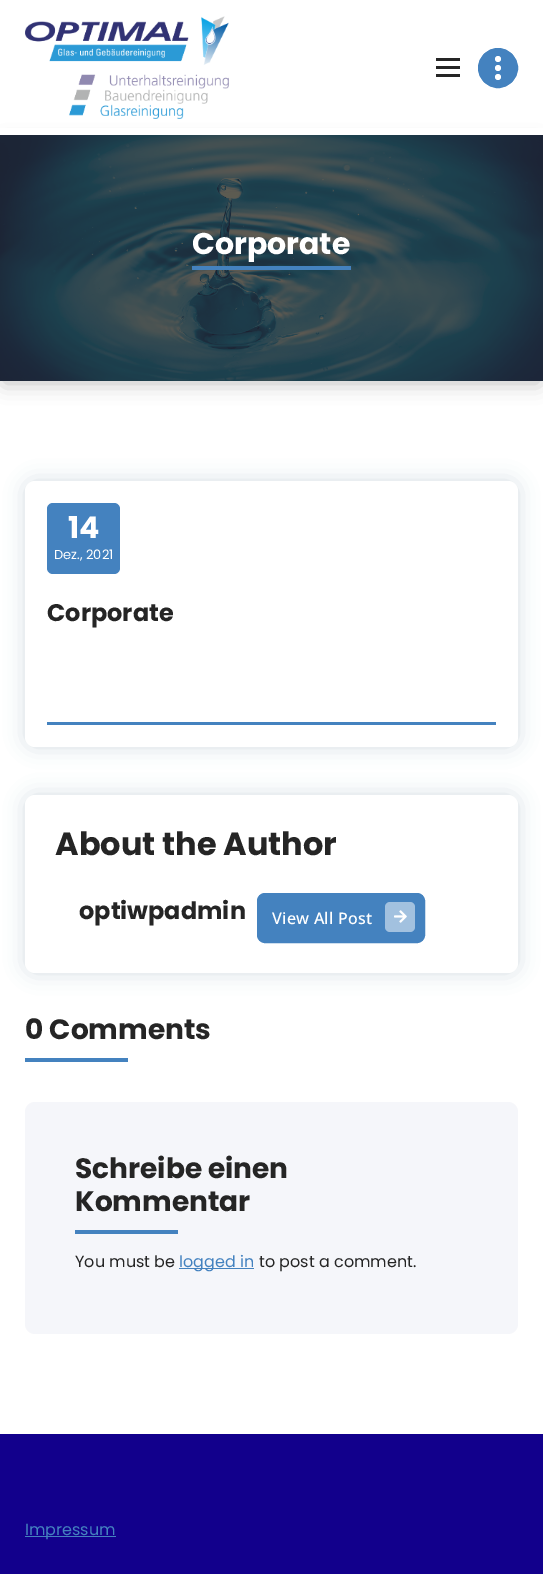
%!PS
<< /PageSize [543 1574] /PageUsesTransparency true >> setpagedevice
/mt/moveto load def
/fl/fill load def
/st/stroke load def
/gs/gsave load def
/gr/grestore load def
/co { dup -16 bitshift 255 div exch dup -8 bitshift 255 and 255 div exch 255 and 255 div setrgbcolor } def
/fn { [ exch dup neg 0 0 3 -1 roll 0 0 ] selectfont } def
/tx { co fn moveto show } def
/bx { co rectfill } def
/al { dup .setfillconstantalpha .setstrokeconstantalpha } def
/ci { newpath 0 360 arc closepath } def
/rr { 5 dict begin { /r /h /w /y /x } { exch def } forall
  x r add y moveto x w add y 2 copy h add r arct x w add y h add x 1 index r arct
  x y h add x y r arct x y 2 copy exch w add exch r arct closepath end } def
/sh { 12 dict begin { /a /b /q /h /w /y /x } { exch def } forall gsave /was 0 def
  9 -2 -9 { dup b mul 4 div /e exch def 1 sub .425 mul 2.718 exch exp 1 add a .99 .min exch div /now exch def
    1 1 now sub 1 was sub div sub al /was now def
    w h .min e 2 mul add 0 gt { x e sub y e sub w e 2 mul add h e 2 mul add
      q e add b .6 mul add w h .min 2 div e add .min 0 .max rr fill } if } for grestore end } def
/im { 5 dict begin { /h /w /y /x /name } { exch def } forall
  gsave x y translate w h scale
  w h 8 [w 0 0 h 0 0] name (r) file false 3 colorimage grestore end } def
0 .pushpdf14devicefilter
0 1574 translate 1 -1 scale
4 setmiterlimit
0 0 543 1574 16#FFFFFF bx
16#000000 co
4 145 535 238 0 10 .25 sh
0 128 543 7 16#FFFFFF bx
(media/1.raw) 25 16 204 103 im
436 58 24 3 16#252525 bx
436 66 24 3 16#252525 bx
436 74 24 3 16#252525 bx
16#4482BF co
498 68 19.5 ci gs fl gr
st
16#FFFFFF co
498 68 3 ci fl
498 59 3 ci fl
498 77 3 ci fl
(media/2.raw) 0 135 543 246 im
192 266 159 4 16#4482BF bx
16#214462 co
25 481 493 266 10 10 .19 sh
16#FFFFFF co
25 481 493 266 10 rr fl
16#4482BF co
47 503 73 71 6 rr fl
47 722 449 3 16#4482BF bx
16#214462 co
25 795 493 178 10 10 .19 sh
16#FFFFFF co
25 795 493 178 10 rr fl
16#4482BF co
257.5 893.5 167 49 7.5 rr gs fl gr
st
16#A2C1DF co
385 902 30 30 5 rr fl
(media/3.raw) 394 910 13 13 im
25 1058 103 4 16#4482BF bx
16#F5F6FA co
25 1102 493 232 10 rr fl
75 1230 103 4 16#4482BF bx
179 1268 75 1 16#4482BF bx
0 1434 543 140 16#12008C bx
25 1536 91 1 16#4482BF bx
(Corporate) 192 254 /Poppins-Bold 30 16#FFFFFF tx
(14) 68 538 /Poppins-Bold 30 16#FFFFFF tx
(Dez., 2021) 54 559 /Poppins-Regular 13 16#FFFFFF tx
(Corporate) 47 621 /Poppins-Bold 24 16#252525 tx
(About the Author) 55 855 /Poppins-Bold 32 16#252525 tx
(optiwpadmin) 79 919 /Poppins-Bold 24 16#252525 tx
/NotoSans-Medium 16 fn
16#FFFFFF co
272 924 mt .25 0 (View All Post) ashow
(0 Comments) 25 1039 /Poppins-Bold 28 16#252525 tx
(Schreibe einen) 75 1178 /Poppins-Bold 28 16#252525 tx
(Kommentar) 75 1211 /Poppins-Bold 28 16#252525 tx
(You must be) 75 1267 /Poppins-Regular 16 16#252525 tx
(logged in) 179 1267 /Poppins-Regular 16 16#4482BF tx
(to post a comment.) 259 1267 /Poppins-Regular 16 16#252525 tx
(Impressum) 25 1535 /Poppins-Regular 16 16#4482BF tx
.poppdf14devicefilter showpage
